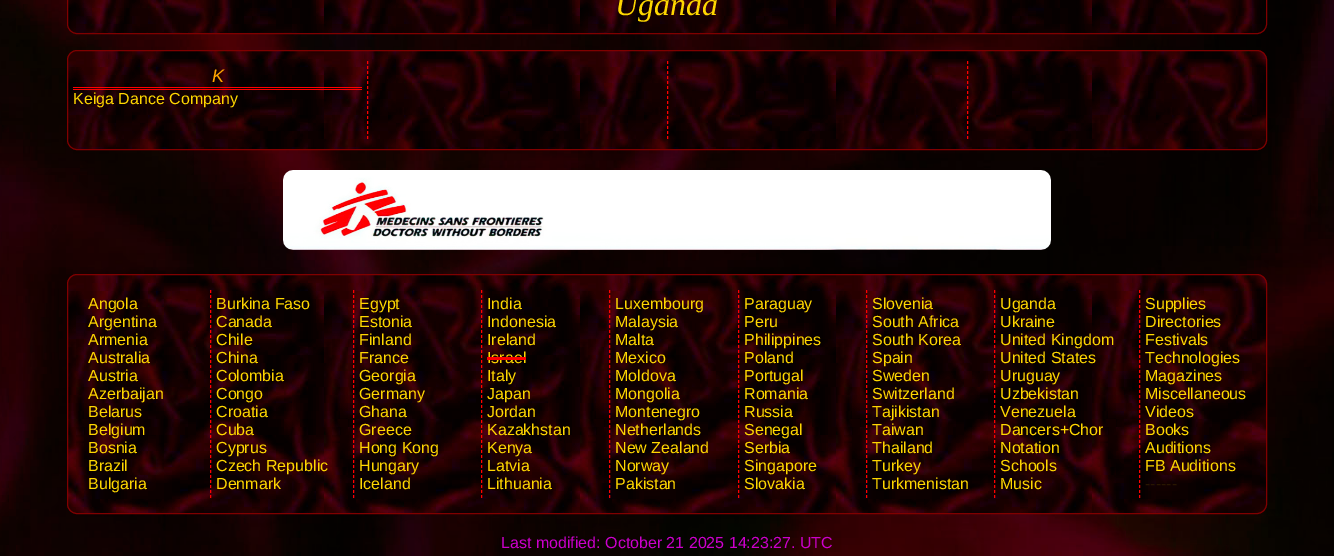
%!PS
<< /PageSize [1334 556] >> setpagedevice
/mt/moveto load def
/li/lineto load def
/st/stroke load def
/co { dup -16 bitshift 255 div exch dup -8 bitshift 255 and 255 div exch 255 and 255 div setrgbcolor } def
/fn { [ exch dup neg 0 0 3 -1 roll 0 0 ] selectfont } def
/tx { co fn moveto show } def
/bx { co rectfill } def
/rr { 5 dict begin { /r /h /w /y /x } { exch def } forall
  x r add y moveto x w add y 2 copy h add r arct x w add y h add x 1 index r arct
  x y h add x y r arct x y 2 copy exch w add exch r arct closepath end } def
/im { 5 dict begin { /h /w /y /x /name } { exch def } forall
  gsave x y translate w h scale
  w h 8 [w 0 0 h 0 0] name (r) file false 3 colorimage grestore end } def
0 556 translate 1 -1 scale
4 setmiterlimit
0 0 1334 556 16#FFFFFF bx
(media/1.raw) 0 0 1334 556 im
(media/2.raw) 67 0 1195 34 im
16#800000 co
67.5 -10.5 1199 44 9.5 rr st
(media/3.raw) 67 50 1200 100 im
67.5 50.5 1199 99 9.5 rr st
73 87 289 1 16#FF0000 bx
73 89 289 1 16#FF0000 bx
[3 2] 0 setdash
367.5 61 mt 367.5 139 li st
667.5 61 mt 667.5 139 li st
967.5 61 mt 967.5 139 li st
(media/4.raw) 283 170 768 80 im
(media/5.raw) 67 274 1200 240 im
16#800000 co
[] 0 setdash
67.5 274.5 1199 239 9.5 rr st
16#FF0000 co
[3 2] 0 setdash
210.5 290 mt 210.5 498 li st
353.5 290 mt 353.5 498 li st
481.5 290 mt 481.5 498 li st
609.5 290 mt 609.5 498 li st
738.5 290 mt 738.5 498 li st
866.5 290 mt 866.5 498 li st
994.5 290 mt 994.5 498 li st
1139.5 290 mt 1139.5 498 li st
(Uganda) 615 15 /LiberationSerif-Italic 32 16#FFD700 tx
(K) 212 82 /LiberationSans-Italic 18 16#FFA500 tx
(Keiga Dance Company) 73 104 /LiberationSans-Regular 16 16#FFD700 tx
(Angola) 88 309 /LiberationSans-Regular 16 16#FFD700 tx
(Argentina) 88 327 /LiberationSans-Regular 16 16#FFD700 tx
(Armenia) 88 345 /LiberationSans-Regular 16 16#FFD700 tx
(Australia) 88 363 /LiberationSans-Regular 16 16#FFD700 tx
(Austria) 88 381 /LiberationSans-Regular 16 16#FFD700 tx
(Azerbaijan) 88 399 /LiberationSans-Regular 16 16#FFD700 tx
(Belarus) 88 417 /LiberationSans-Regular 16 16#FFD700 tx
(Belgium) 88 435 /LiberationSans-Regular 16 16#FFD700 tx
(Bosnia) 88 453 /LiberationSans-Regular 16 16#FFD700 tx
(Brazil) 88 471 /LiberationSans-Regular 16 16#FFD700 tx
(Bulgaria) 88 489 /LiberationSans-Regular 16 16#FFD700 tx
(Burkina Faso) 216 309 /LiberationSans-Regular 16 16#FFD700 tx
(Canada) 216 327 /LiberationSans-Regular 16 16#FFD700 tx
(Chile) 216 345 /LiberationSans-Regular 16 16#FFD700 tx
(China) 216 363 /LiberationSans-Regular 16 16#FFD700 tx
(Colombia) 216 381 /LiberationSans-Regular 16 16#FFD700 tx
(Congo) 216 399 /LiberationSans-Regular 16 16#FFD700 tx
(Croatia) 216 417 /LiberationSans-Regular 16 16#FFD700 tx
(Cuba) 216 435 /LiberationSans-Regular 16 16#FFD700 tx
(Cyprus) 216 453 /LiberationSans-Regular 16 16#FFD700 tx
(Czech Republic) 216 471 /LiberationSans-Regular 16 16#FFD700 tx
(Denmark) 216 489 /LiberationSans-Regular 16 16#FFD700 tx
(Egypt) 359 309 /LiberationSans-Regular 16 16#FFD700 tx
(Estonia) 359 327 /LiberationSans-Regular 16 16#FFD700 tx
(Finland) 359 345 /LiberationSans-Regular 16 16#FFD700 tx
(France) 359 363 /LiberationSans-Regular 16 16#FFD700 tx
(Georgia) 359 381 /LiberationSans-Regular 16 16#FFD700 tx
(Germany) 359 399 /LiberationSans-Regular 16 16#FFD700 tx
(Ghana) 359 417 /LiberationSans-Regular 16 16#FFD700 tx
(Greece) 359 435 /LiberationSans-Regular 16 16#FFD700 tx
(Hong Kong) 359 453 /LiberationSans-Regular 16 16#FFD700 tx
(Hungary) 359 471 /LiberationSans-Regular 16 16#FFD700 tx
(Iceland) 359 489 /LiberationSans-Regular 16 16#FFD700 tx
(India) 487 309 /LiberationSans-Regular 16 16#FFD700 tx
(Indonesia) 487 327 /LiberationSans-Regular 16 16#FFD700 tx
(Ireland) 487 345 /LiberationSans-Regular 16 16#FFD700 tx
(Israel) 487 363 /LiberationSans-Regular 16 16#FFD700 tx
487 357 39 3 16#FF0000 bx
(Italy) 487 381 /LiberationSans-Regular 16 16#FFD700 tx
(Japan) 487 399 /LiberationSans-Regular 16 16#FFD700 tx
(Jordan) 487 417 /LiberationSans-Regular 16 16#FFD700 tx
(Kazakhstan) 487 435 /LiberationSans-Regular 16 16#FFD700 tx
(Kenya) 487 453 /LiberationSans-Regular 16 16#FFD700 tx
(Latvia) 487 471 /LiberationSans-Regular 16 16#FFD700 tx
(Lithuania) 487 489 /LiberationSans-Regular 16 16#FFD700 tx
(Luxembourg) 615 309 /LiberationSans-Regular 16 16#FFD700 tx
(Malaysia) 615 327 /LiberationSans-Regular 16 16#FFD700 tx
(Malta) 615 345 /LiberationSans-Regular 16 16#FFD700 tx
(Mexico) 615 363 /LiberationSans-Regular 16 16#FFD700 tx
(Moldova) 615 381 /LiberationSans-Regular 16 16#FFD700 tx
(Mongolia) 615 399 /LiberationSans-Regular 16 16#FFD700 tx
(Montenegro) 615 417 /LiberationSans-Regular 16 16#FFD700 tx
(Netherlands) 615 435 /LiberationSans-Regular 16 16#FFD700 tx
(New Zealand) 615 453 /LiberationSans-Regular 16 16#FFD700 tx
(Norway) 615 471 /LiberationSans-Regular 16 16#FFD700 tx
(Pakistan) 615 489 /LiberationSans-Regular 16 16#FFD700 tx
(Paraguay) 744 309 /LiberationSans-Regular 16 16#FFD700 tx
(Peru) 744 327 /LiberationSans-Regular 16 16#FFD700 tx
(Philippines) 744 345 /LiberationSans-Regular 16 16#FFD700 tx
(Poland) 744 363 /LiberationSans-Regular 16 16#FFD700 tx
(Portugal) 744 381 /LiberationSans-Regular 16 16#FFD700 tx
(Romania) 744 399 /LiberationSans-Regular 16 16#FFD700 tx
(Russia) 744 417 /LiberationSans-Regular 16 16#FFD700 tx
(Senegal) 744 435 /LiberationSans-Regular 16 16#FFD700 tx
(Serbia) 744 453 /LiberationSans-Regular 16 16#FFD700 tx
(Singapore) 744 471 /LiberationSans-Regular 16 16#FFD700 tx
(Slovakia) 744 489 /LiberationSans-Regular 16 16#FFD700 tx
(Slovenia) 872 309 /LiberationSans-Regular 16 16#FFD700 tx
(South Africa) 872 327 /LiberationSans-Regular 16 16#FFD700 tx
(South Korea) 872 345 /LiberationSans-Regular 16 16#FFD700 tx
(Spain) 872 363 /LiberationSans-Regular 16 16#FFD700 tx
(Sweden) 872 381 /LiberationSans-Regular 16 16#FFD700 tx
(Switzerland) 872 399 /LiberationSans-Regular 16 16#FFD700 tx
(Tajikistan) 872 417 /LiberationSans-Regular 16 16#FFD700 tx
(Taiwan) 872 435 /LiberationSans-Regular 16 16#FFD700 tx
(Thailand) 872 453 /LiberationSans-Regular 16 16#FFD700 tx
(Turkey) 872 471 /LiberationSans-Regular 16 16#FFD700 tx
(Turkmenistan) 872 489 /LiberationSans-Regular 16 16#FFD700 tx
(Uganda) 1000 309 /LiberationSans-Regular 16 16#FFD700 tx
(Ukraine) 1000 327 /LiberationSans-Regular 16 16#FFD700 tx
(United Kingdom) 1000 345 /LiberationSans-Regular 16 16#FFD700 tx
(United States) 1000 363 /LiberationSans-Regular 16 16#FFD700 tx
(Uruguay) 1000 381 /LiberationSans-Regular 16 16#FFD700 tx
(Uzbekistan) 1000 399 /LiberationSans-Regular 16 16#FFD700 tx
(Venezuela) 1000 417 /LiberationSans-Regular 16 16#FFD700 tx
(Dancers+Chor) 1000 435 /LiberationSans-Regular 16 16#FFD700 tx
(Notation) 1000 453 /LiberationSans-Regular 16 16#FFD700 tx
(Schools) 1000 471 /LiberationSans-Regular 16 16#FFD700 tx
(Music) 1000 489 /LiberationSans-Regular 16 16#FFD700 tx
(Supplies) 1145 309 /LiberationSans-Regular 16 16#FFD700 tx
(Directories) 1145 327 /LiberationSans-Regular 16 16#FFD700 tx
(Festivals) 1145 345 /LiberationSans-Regular 16 16#FFD700 tx
(Technologies) 1145 363 /LiberationSans-Regular 16 16#FFD700 tx
(Magazines) 1145 381 /LiberationSans-Regular 16 16#FFD700 tx
(Miscellaneous) 1145 399 /LiberationSans-Regular 16 16#FFD700 tx
(Videos) 1145 417 /LiberationSans-Regular 16 16#FFD700 tx
(Books) 1145 435 /LiberationSans-Regular 16 16#FFD700 tx
(Auditions) 1145 453 /LiberationSans-Regular 16 16#FFD700 tx
(FB Auditions) 1145 471 /LiberationSans-Regular 16 16#FFD700 tx
(------) 1145 489 /LiberationSans-Regular 16 16#281601 tx
(Last modified: October 21 2025 14:23:27. UTC) 501 548 /LiberationSans-Regular 16 16#CC00CC tx
showpage
